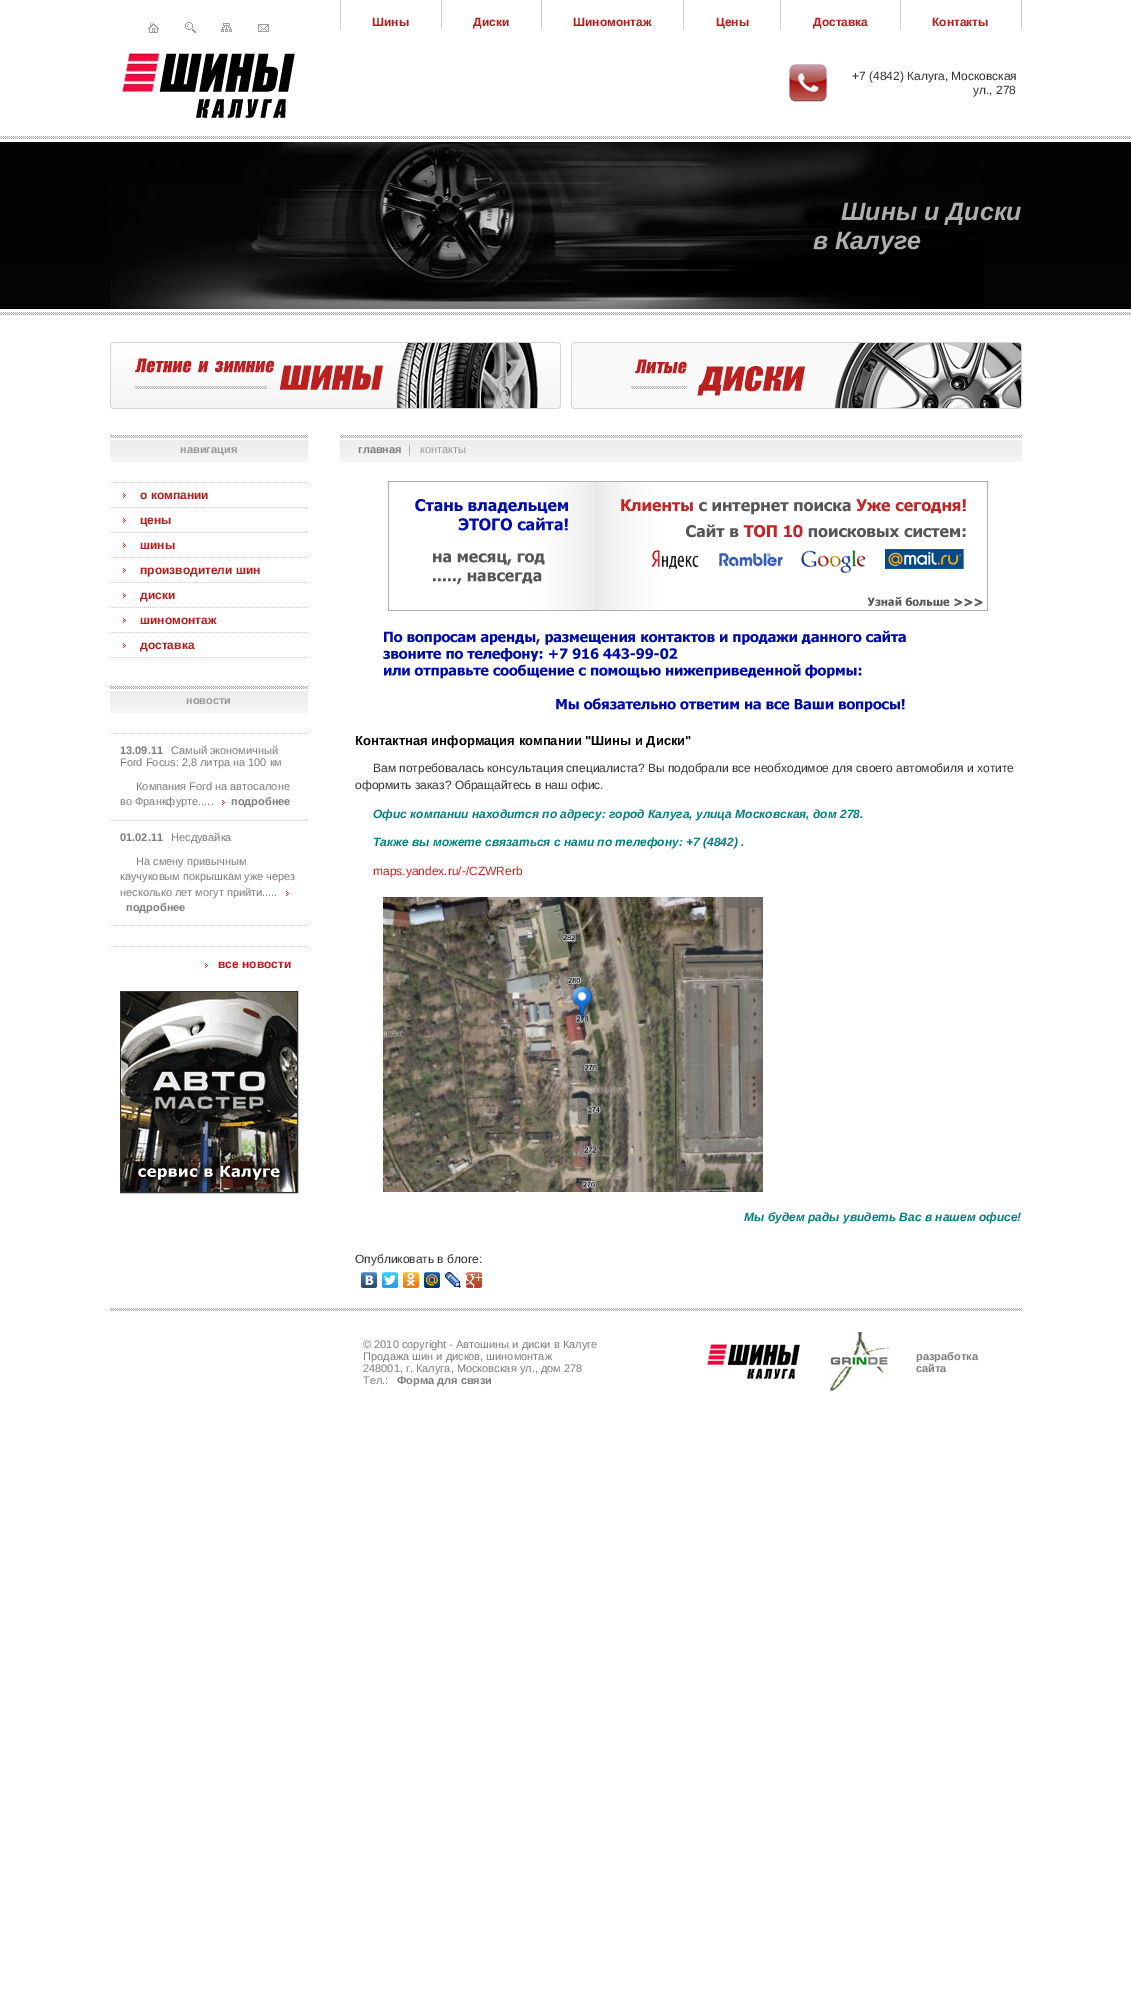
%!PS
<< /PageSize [1131 2006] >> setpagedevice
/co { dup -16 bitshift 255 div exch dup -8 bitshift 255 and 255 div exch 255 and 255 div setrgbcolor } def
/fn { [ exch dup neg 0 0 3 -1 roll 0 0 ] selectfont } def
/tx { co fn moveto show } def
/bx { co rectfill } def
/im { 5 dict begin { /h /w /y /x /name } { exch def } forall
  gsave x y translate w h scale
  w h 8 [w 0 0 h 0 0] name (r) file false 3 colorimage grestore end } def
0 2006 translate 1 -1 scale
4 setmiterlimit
0 0 1131 2006 16#FFFFFF bx
(media/1.raw) 0 136 1131 179 im
(media/2.raw) 148 23 11 10 im
(media/3.raw) 185 22 11 11 im
(media/4.raw) 221 23 11 9 im
(media/5.raw) 258 24 11 8 im
(media/6.raw) 122 53 173 65 im
340 0 1 29 16#CCCCCC bx
441 0 1 29 16#CCCCCC bx
541 0 1 29 16#CCCCCC bx
683 0 1 29 16#CCCCCC bx
780 0 1 29 16#CCCCCC bx
900 0 1 29 16#CCCCCC bx
1021 0 1 29 16#CCCCCC bx
(media/7.raw) 789 64 38 38 im
(media/8.raw) 110 142 874 167 im
(media/9.raw) 110 342 451 67 im
(media/10.raw) 571 342 451 67 im
(media/11.raw) 110 435 198 27 im
(media/12.raw) 110 482 197 1 im
(media/13.raw) 123 493 3 5 im
(media/12.raw) 110 507 197 1 im
(media/13.raw) 123 518 3 5 im
(media/12.raw) 110 532 197 1 im
(media/13.raw) 123 543 3 5 im
(media/12.raw) 110 557 197 1 im
(media/13.raw) 123 568 3 5 im
(media/12.raw) 110 582 197 1 im
(media/13.raw) 123 593 3 5 im
(media/12.raw) 110 607 197 1 im
(media/13.raw) 123 618 3 5 im
(media/12.raw) 110 632 197 1 im
(media/13.raw) 123 643 3 5 im
(media/12.raw) 110 657 197 1 im
(media/11.raw) 110 686 198 27 im
(media/12.raw) 110 733 197 1 im
(media/13.raw) 222 800 3 5 im
(media/12.raw) 110 820 197 1 im
(media/13.raw) 286 891 3 5 im
(media/12.raw) 110 925 197 1 im
(media/12.raw) 110 946 197 1 im
(media/13.raw) 205 963 3 5 im
16#333333 co
120.5 991.5 177 201 rectstroke
(media/14.raw) 121 992 176 200 im
(media/15.raw) 340 435 682 27 im
(media/16.raw) 388 481 600 130 im
(media/17.raw) 383 630 523 82 im
(media/18.raw) 383 897 380 295 im
(media/19.raw) 361 1272 16 16 im
(media/20.raw) 382 1272 16 16 im
(media/21.raw) 403 1272 16 16 im
(media/22.raw) 424 1272 16 16 im
(media/23.raw) 445 1272 16 16 im
(media/24.raw) 466 1272 16 16 im
(media/25.raw) 110 1308 912 3 im
(media/26.raw) 707 1344 93 36 im
(media/27.raw) 830 1331 60 61 im
(Шины) 372 26 /LiberationSans-Bold 12 16#B61C1C tx
(Диски) 473 26 /LiberationSans-Bold 12 16#B61C1C tx
(Шиномонтаж) 573 26 /LiberationSans-Bold 12 16#B61C1C tx
(Цены) 716 26 /LiberationSans-Bold 12 16#B61C1C tx
(Доставка) 813 26 /LiberationSans-Bold 12 16#B61C1C tx
(Контакты) 932 26 /LiberationSans-Bold 12 16#B61C1C tx
(+7 \(4842\) Калуга, Московская) 852 80 /LiberationSans-Regular 12 16#343434 tx
(ул., 278) 973 94 /LiberationSans-Regular 12 16#343434 tx
(Шины и Диски) 841 220 /LiberationSans-BoldItalic 25 16#AFADAD tx
(в Калуге) 813 249 /LiberationSans-BoldItalic 25 16#AFADAD tx
(навигация) 180 453 /LiberationSans-Bold 11 16#999999 tx
(о компании) 140 499 /LiberationSans-Bold 12 16#B61C1C tx
(цены) 140 524 /LiberationSans-Bold 12 16#B61C1C tx
(шины) 140 549 /LiberationSans-Bold 12 16#B61C1C tx
(производители шин) 140 574 /LiberationSans-Bold 12 16#B61C1C tx
(диски) 140 599 /LiberationSans-Bold 12 16#B61C1C tx
(шиномонтаж) 140 624 /LiberationSans-Bold 12 16#B61C1C tx
(доставка) 140 649 /LiberationSans-Bold 12 16#B61C1C tx
(новости) 186 704 /LiberationSans-Bold 11 16#999999 tx
(13.09.11) 120 754 /LiberationSans-Bold 11 16#7E7E7E tx
(Самый экономичный) 171 754 /LiberationSans-Regular 11 16#7E7E7E tx
(Ford Focus: 2,8 литра на 100 км) 120 766 /LiberationSans-Regular 11 16#7E7E7E tx
(Компания Ford на автосалоне) 136 790 /LiberationSans-Regular 11 16#7E7E7E tx
(во Франкфурте.....) 120 805 /LiberationSans-Regular 11 16#7E7E7E tx
(подробнее) 231 805 /LiberationSans-Bold 11 16#7E7E7E tx
(01.02.11) 120 841 /LiberationSans-Bold 11 16#7E7E7E tx
(Несдувайка) 171 841 /LiberationSans-Regular 11 16#7E7E7E tx
(На смену привычным) 136 865 /LiberationSans-Regular 11 16#7E7E7E tx
(каучуковым покрышкам уже через) 120 880 /LiberationSans-Regular 11 16#7E7E7E tx
(несколько лет могут прийти.....) 120 896 /LiberationSans-Regular 11 16#7E7E7E tx
(подробнее) 126 911 /LiberationSans-Bold 11 16#7E7E7E tx
(все новости) 218 968 /LiberationSans-Bold 12 16#B61C1C tx
(главная) 358 453 /LiberationSans-Bold 11 16#7E7E7E tx
(|) 408 453 /LiberationSans-Regular 11 16#999999 tx
(контакты) 420 453 /LiberationSans-Regular 11 16#999999 tx
(Контактная информация компании "Шины и Диски") 355 745 /LiberationSans-Bold 13 16#000000 tx
(Вам потребовалась консультация специалиста? Вы подобрали все необходимое для своего автомобиля и хотите) 373 772 /LiberationSans-Regular 12 16#343434 tx
(оформить заказ? Обращайтесь в наш офис.) 355 789 /LiberationSans-Regular 12 16#343434 tx
(Офис компании находится по адресу: город Калуга, улица Московская, дом 278.) 373 818 /LiberationSans-BoldItalic 12 16#008080 tx
(Также вы можете связаться с нами по телефону: +7 \(4842\) .) 373 846 /LiberationSans-BoldItalic 12 16#008080 tx
(maps.yandex.ru/-/CZWRerb) 373 875 /LiberationSans-Regular 12 16#D02020 tx
(Мы будем рады увидеть Вас в нашем офисе!) 744 1221 /LiberationSans-BoldItalic 12 16#008080 tx
(Опубликовать в блоге:) 355 1263 /LiberationSans-Regular 12 16#343434 tx
(© 2010 copyright - Автошины и диски в Калуге) 363 1348 /LiberationSans-Regular 11 16#7E7E7E tx
(Продажа шин и дисков, шиномонтаж) 363 1360 /LiberationSans-Regular 11 16#7E7E7E tx
(248001, г. Калуга, Московская ул., дом 278) 363 1372 /LiberationSans-Regular 11 16#7E7E7E tx
(Тел.:) 363 1384 /LiberationSans-Regular 11 16#7E7E7E tx
(Форма для связи) 397 1384 /LiberationSans-Bold 11 16#7E7E7E tx
(разработка) 916 1360 /LiberationSans-Bold 11 16#7E7E7E tx
(сайта) 916 1372 /LiberationSans-Bold 11 16#7E7E7E tx
showpage
